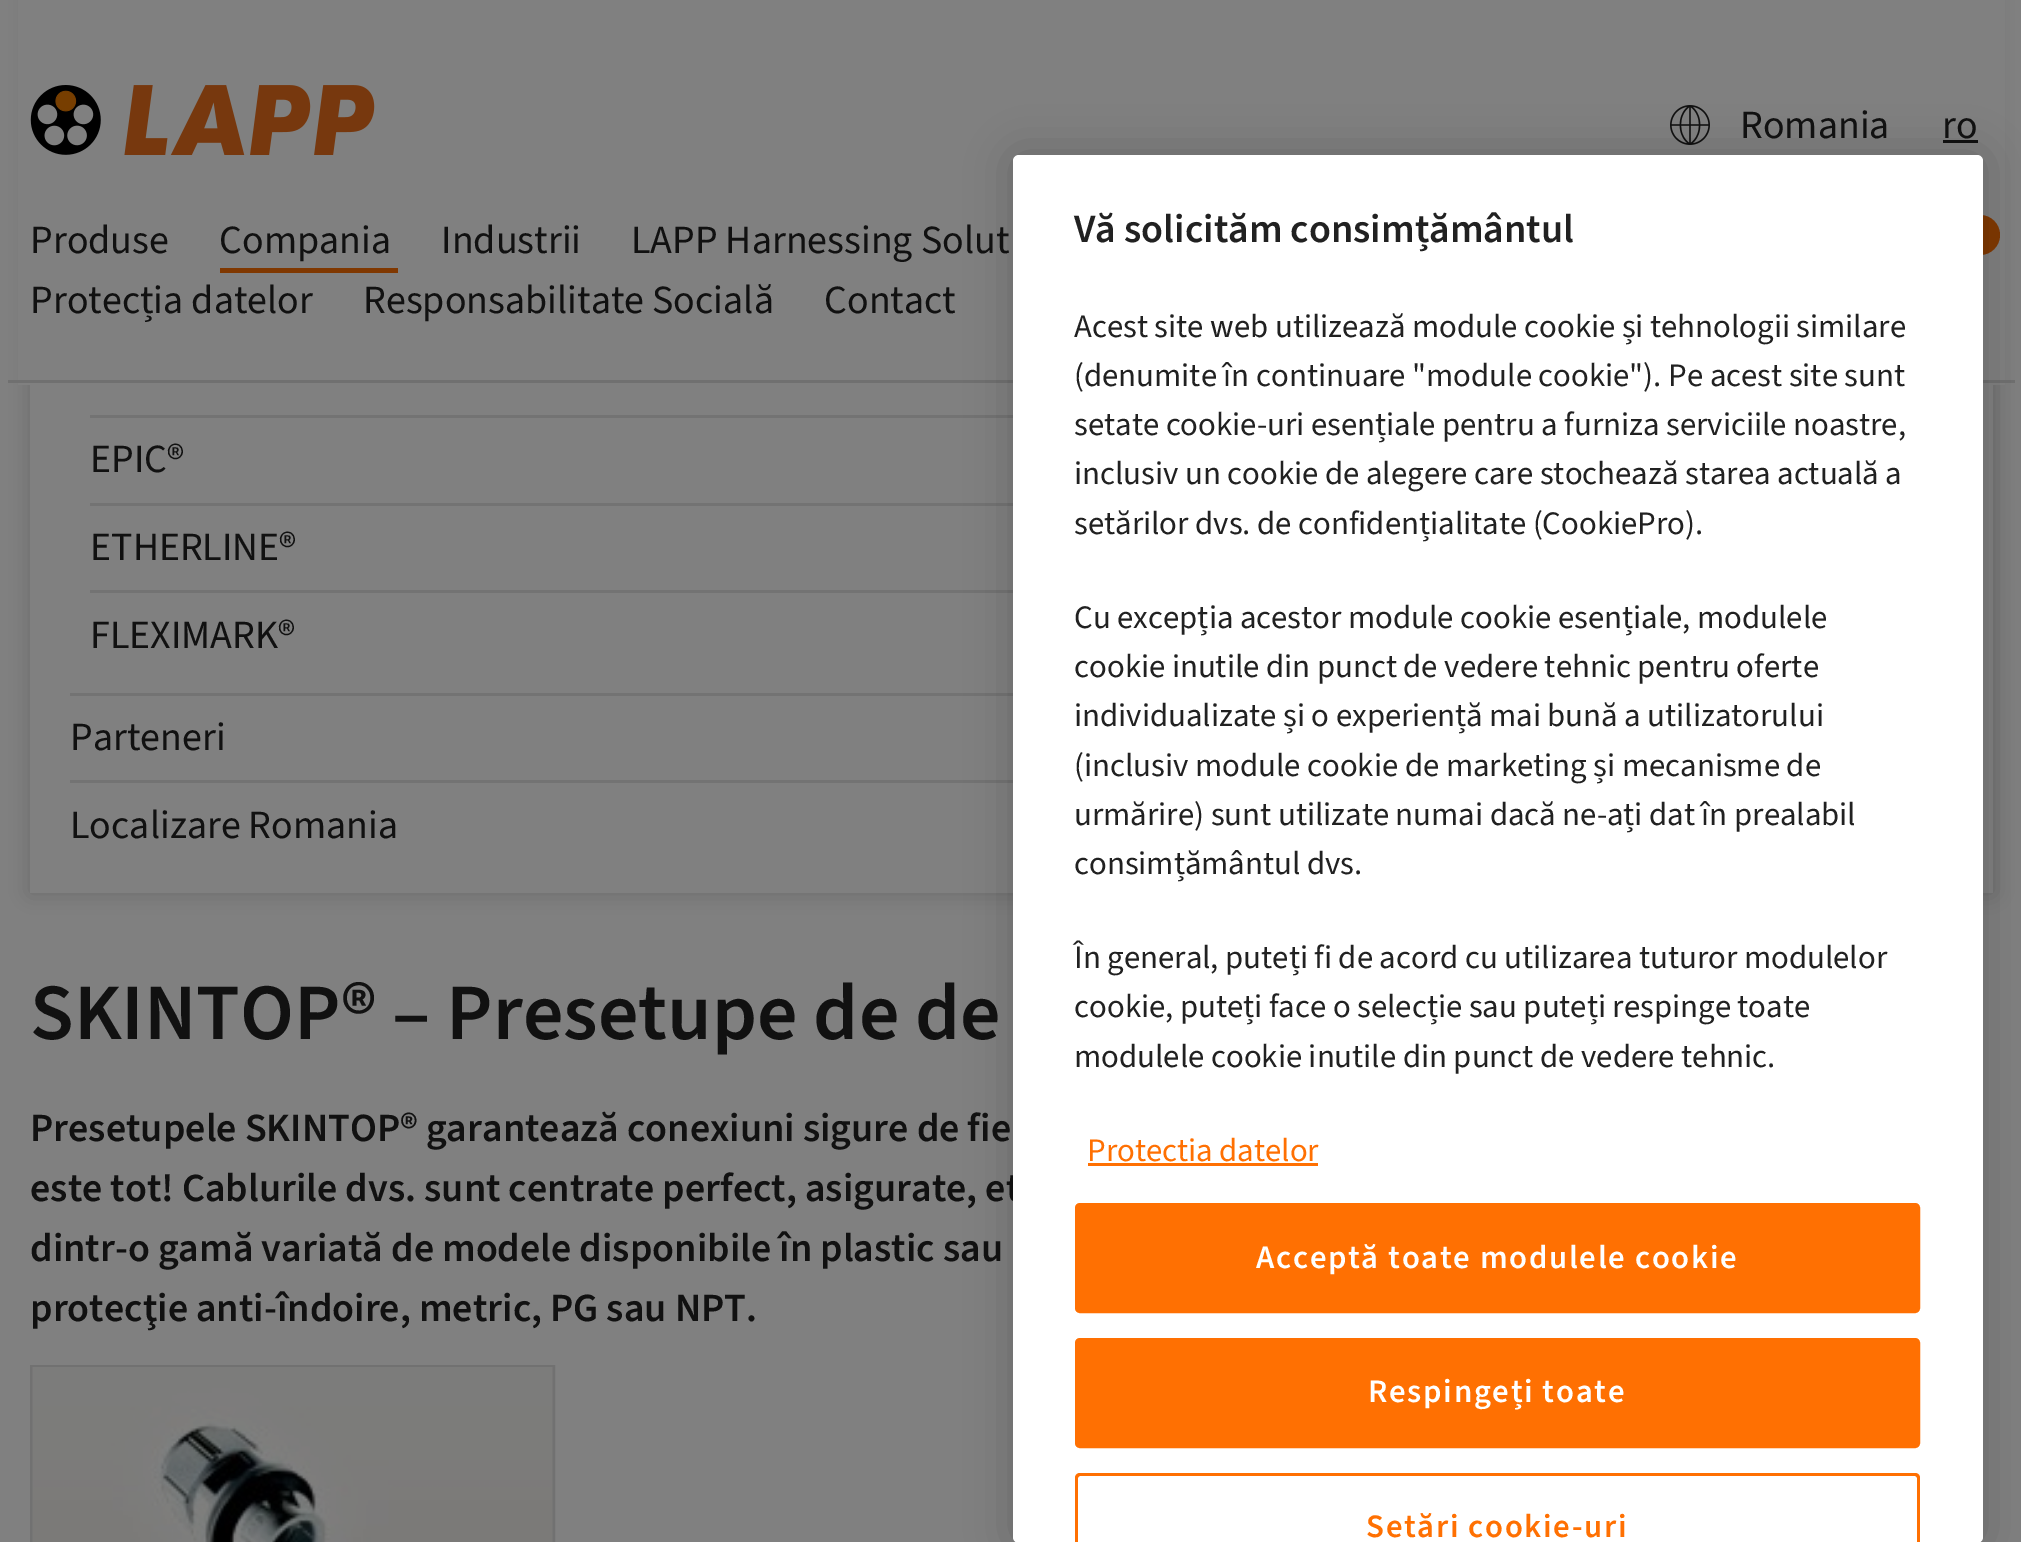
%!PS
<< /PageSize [2021 1542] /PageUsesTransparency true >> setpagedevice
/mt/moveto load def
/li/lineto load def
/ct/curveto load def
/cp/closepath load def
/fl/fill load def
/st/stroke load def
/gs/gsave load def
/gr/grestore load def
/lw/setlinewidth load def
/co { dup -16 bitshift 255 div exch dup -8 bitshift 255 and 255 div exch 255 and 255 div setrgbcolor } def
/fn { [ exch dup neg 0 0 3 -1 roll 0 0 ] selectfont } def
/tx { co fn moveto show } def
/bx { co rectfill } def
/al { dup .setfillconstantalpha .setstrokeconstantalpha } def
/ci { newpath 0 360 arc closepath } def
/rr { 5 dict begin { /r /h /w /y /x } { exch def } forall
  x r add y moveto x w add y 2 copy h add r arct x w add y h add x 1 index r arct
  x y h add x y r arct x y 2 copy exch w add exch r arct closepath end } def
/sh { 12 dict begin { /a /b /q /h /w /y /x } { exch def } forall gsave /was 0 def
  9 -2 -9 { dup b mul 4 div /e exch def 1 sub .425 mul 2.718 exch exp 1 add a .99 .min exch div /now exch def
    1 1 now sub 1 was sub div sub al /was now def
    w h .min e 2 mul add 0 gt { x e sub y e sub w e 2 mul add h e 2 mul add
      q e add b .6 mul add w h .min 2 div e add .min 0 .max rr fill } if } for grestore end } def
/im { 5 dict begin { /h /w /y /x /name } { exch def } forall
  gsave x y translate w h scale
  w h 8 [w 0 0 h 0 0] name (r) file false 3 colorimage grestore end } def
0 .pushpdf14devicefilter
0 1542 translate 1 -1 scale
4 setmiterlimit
0 0 2021 1542 16#808080 bx
16#111111 co
30 -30 1963 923 0 10 .2 sh
18 0 1987 385 16#808080 bx
(media/1.raw) 30 85 345 70 im
(media/2.raw) 1670 105 40 40 im
1943 140 35 3 16#111111 bx
220 268 178 5 16#803801 bx
1980 235 20 ci fl
8 380 2007 3 16#707070 bx
30 385 1963 508 16#808080 bx
90 415 923 3 16#737373 bx
90 503 923 3 16#737373 bx
90 590 923 3 16#737373 bx
70 693 943 3 16#737373 bx
70 780 943 3 16#737373 bx
16#717171 co
3 lw
31.5 1366.5 522 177 rectstroke
(media/3.raw) 32 1367 521 175 im
16#000000 co
1013 155 970 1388 6 22.5 .2 sh
(Romania) 1740 138 /SourceSans3-Regular 40 16#111111 tx
(ro) 1942 138 /SourceSans3-Regular 40 16#111111 tx
(Produse) 30 253 /SourceSans3-Regular 40 16#111111 tx
(Compania) 219 253 /SourceSans3-Regular 40 16#111111 tx
(Industrii) 441 253 /SourceSans3-Regular 40 16#111111 tx
(LAPP Harnessing Solut) 631 253 /SourceSans3-Regular 40 16#111111 tx
(Protecția datelor) 30 313 /SourceSans3-Regular 40 16#111111 tx
(Responsabilitate Socială) 363 313 /SourceSans3-Regular 40 16#111111 tx
(Contact) 824 313 /SourceSans3-Regular 40 16#111111 tx
(EPIC®) 90 472 /SourceSans3-Regular 40 16#111111 tx
(ETHERLINE®) 90 560 /SourceSans3-Regular 40 16#111111 tx
(FLEXIMARK®) 90 648 /SourceSans3-Regular 40 16#111111 tx
(Parteneri) 70 750 /SourceSans3-Regular 40 16#111111 tx
(Localizare Romania) 70 838 /SourceSans3-Regular 40 16#111111 tx
(SKINTOP® – Presetupe de de) 30 1039 /SourceSans3-SemiBold 80 16#111111 tx
(Presetupele SKINTOP® garantează conexiuni sigure de fie) 30 1141 /SourceSans3-SemiBold 40 16#111111 tx
(este tot! Cablurile dvs. sunt centrate perfect, asigurate, et) 30 1201 /SourceSans3-SemiBold 40 16#111111 tx
(dintr-o gamă variată de modele disponibile în plastic sau) 30 1261 /SourceSans3-SemiBold 40 16#111111 tx
(protecţie anti-îndoire, metric, PG sau NPT.) 30 1321 /SourceSans3-SemiBold 40 16#111111 tx
16#FFFFFF co
1013 155 970 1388 6 rr fl
(Vă solicităm consimțământul) 1074 242 /SourceSans3-SemiBold 40 16#212121 tx
(Acest site web utilizează module cookie și tehnologii similare) 1074 337 /SourceSans3-Regular 32.8 16#212121 tx
(\(denumite în continuare "module cookie"\). Pe acest site sunt) 1074 386 /SourceSans3-Regular 32.8 16#212121 tx
(setate cookie-uri esențiale pentru a furniza serviciile noastre,) 1074 435 /SourceSans3-Regular 32.8 16#212121 tx
(inclusiv un cookie de alegere care stochează starea actuală a) 1074 484 /SourceSans3-Regular 32.8 16#212121 tx
(setărilor dvs. de confidențialitate \(CookiePro\).) 1074 534 /SourceSans3-Regular 32.8 16#212121 tx
(Cu excepția acestor module cookie esențiale, modulele) 1074 628 /SourceSans3-Regular 32.8 16#212121 tx
(cookie inutile din punct de vedere tehnic pentru oferte) 1074 677 /SourceSans3-Regular 32.8 16#212121 tx
(individualizate și o experiență mai bună a utilizatorului) 1074 726 /SourceSans3-Regular 32.8 16#212121 tx
(\(inclusiv module cookie de marketing și mecanisme de) 1074 776 /SourceSans3-Regular 32.8 16#212121 tx
(urmărire\) sunt utilizate numai dacă ne-ați dat în prealabil) 1074 825 /SourceSans3-Regular 32.8 16#212121 tx
(consimțământul dvs.) 1074 874 /SourceSans3-Regular 32.8 16#212121 tx
(În general, puteți fi de acord cu utilizarea tuturor modulelor) 1074 968 /SourceSans3-Regular 32.8 16#212121 tx
(cookie, puteți face o selecție sau puteți respinge toate) 1074 1017 /SourceSans3-Regular 32.8 16#212121 tx
(modulele cookie inutile din punct de vedere tehnic.) 1074 1067 /SourceSans3-Regular 32.8 16#212121 tx
(Protectia datelor) 1087 1161 /SourceSans3-Regular 32.8 16#FF7002 tx
1088 1163 230 3 16#FF7002 bx
1076.5 1204.5 842 107 3.5 rr gs fl gr
st
/SourceSans3-SemiBold 32.8 fn
16#FFFFFF co
1256 1268 mt 1.65 0 (Acceptă toate modulele cookie) ashow
16#FF7002 co
1076.5 1339.5 842 107 3.5 rr gs fl gr
st
16#FFFFFF co
1368 1402 mt 1.65 0 (Respingeți toate) ashow
16#FF7002 co
1080 1473 mt 1077 1473 1075 1475 1075 1478 ct 1075 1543 li 1078 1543 li 1078 1478 li 1078 1477 1079 1476 1080 1476 ct 1915 1476 li 1916 1476 1917 1477 1917 1478 ct 1917 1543 li 1920 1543 li 1920 1478 li 1920 1475 1918 1473 1915 1473 ct cp fl
1366 1537 mt 1.65 0 (Setări cookie-uri) ashow
.poppdf14devicefilter showpage
